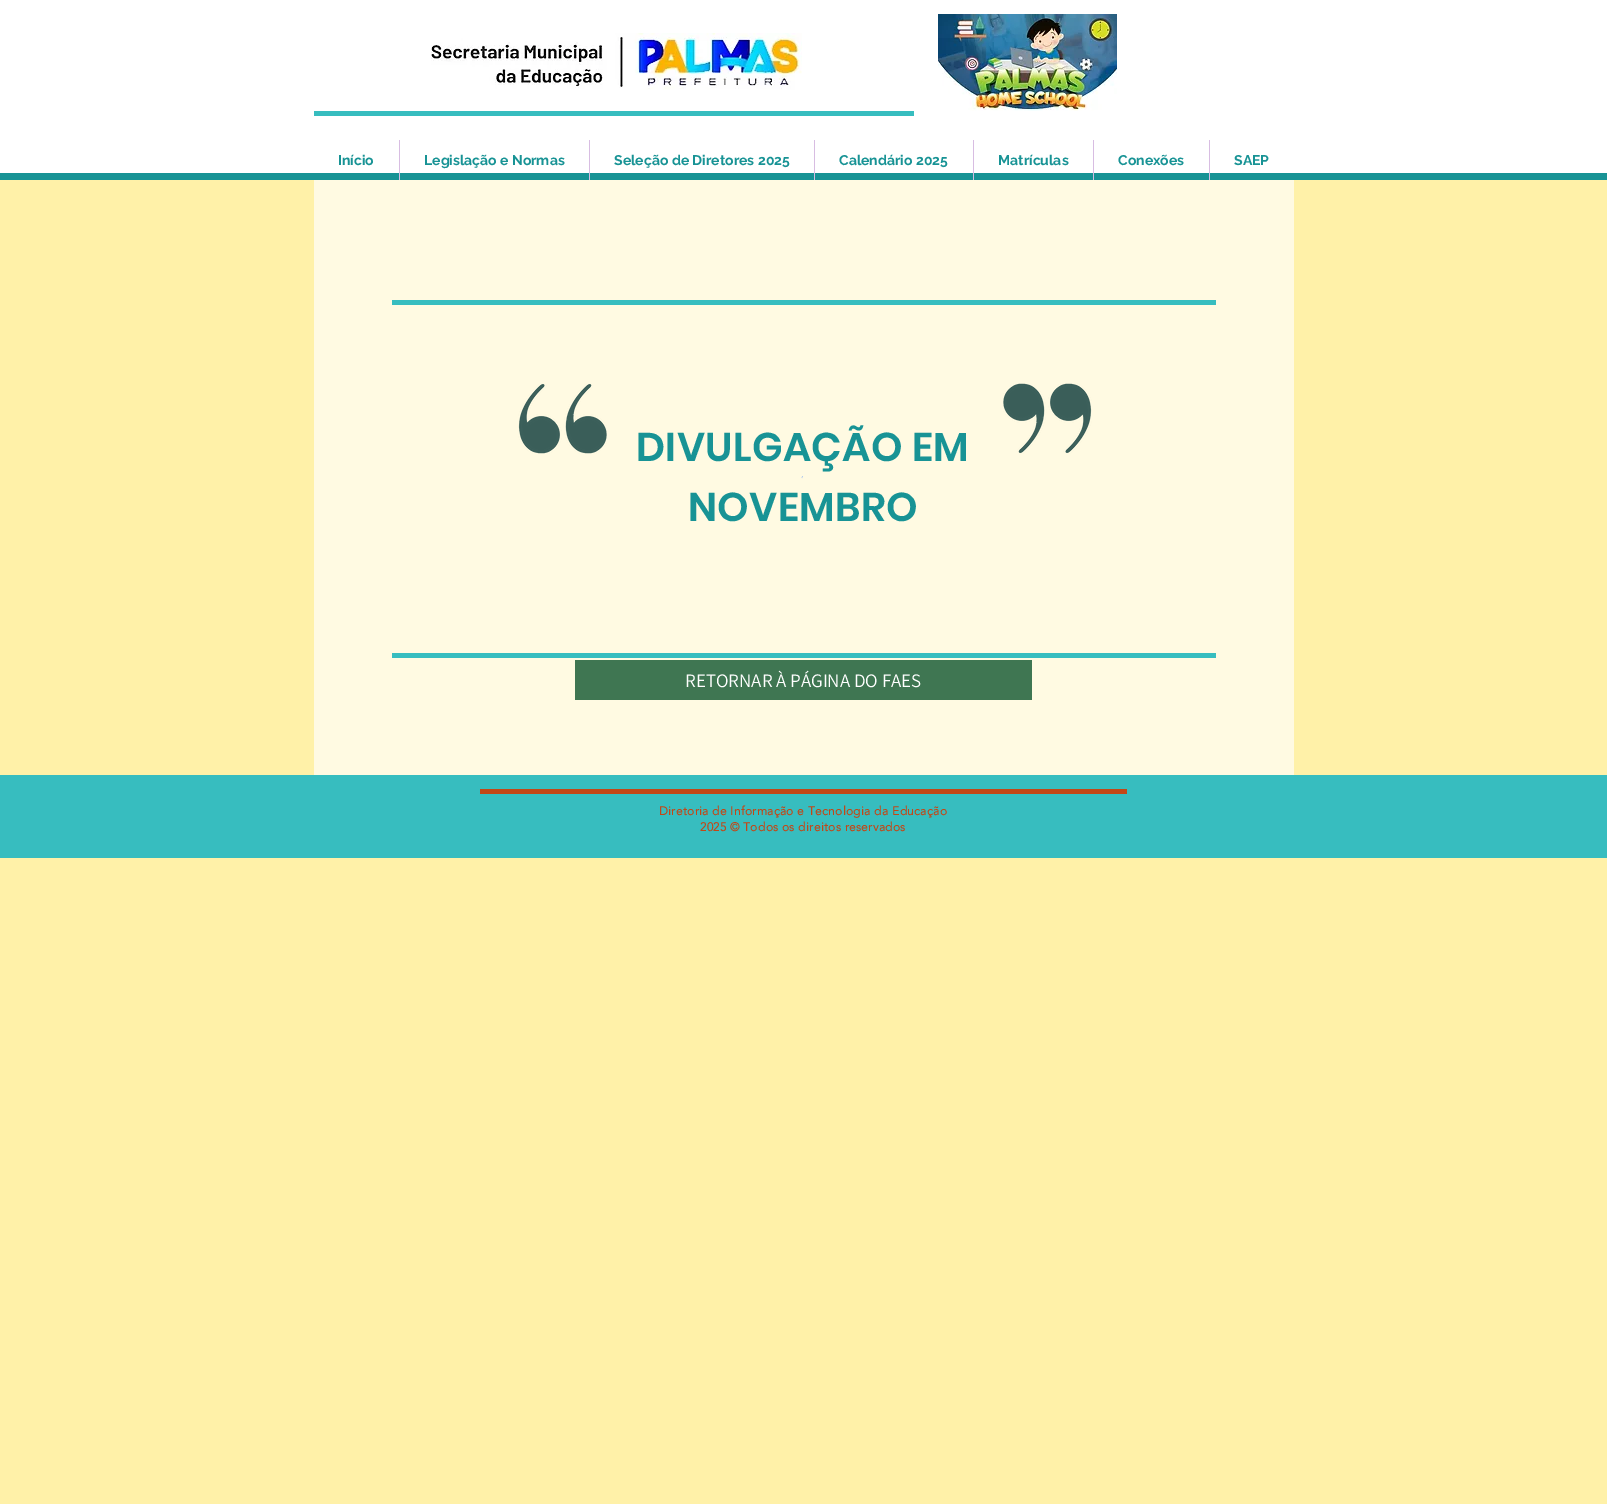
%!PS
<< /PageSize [1607 1504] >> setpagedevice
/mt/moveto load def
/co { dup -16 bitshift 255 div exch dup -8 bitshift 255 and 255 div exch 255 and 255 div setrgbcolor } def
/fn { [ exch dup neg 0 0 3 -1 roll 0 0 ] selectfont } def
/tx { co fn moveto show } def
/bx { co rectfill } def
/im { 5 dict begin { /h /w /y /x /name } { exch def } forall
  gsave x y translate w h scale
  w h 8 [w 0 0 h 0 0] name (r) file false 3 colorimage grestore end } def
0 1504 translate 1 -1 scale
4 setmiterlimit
0 0 1607 1504 16#FFF1A8 bx
0 0 1607 173 16#FFFFFF bx
0 173 1607 7 16#189395 bx
(media/1.raw) 431 33 371 57 im
(media/2.raw) 938 14 179 97 im
314 111 600 5 16#37BDBF bx
399 140 1 40 16#D8BDE2 bx
589 140 1 40 16#D8BDE2 bx
814 140 1 40 16#D8BDE2 bx
973 140 1 40 16#D8BDE2 bx
1093 140 1 40 16#D8BDE2 bx
1209 140 1 40 16#D8BDE2 bx
314 180 980 595 16#FFFAE2 bx
392 300 824 5 16#37BDBF bx
(media/3.raw) 518 383 89 71 im
(media/4.raw) 1003 383 89 71 im
(media/5.raw) 801 476 2 3 im
392 653 824 5 16#37BDBF bx
575 660 457 40 16#3F7652 bx
0 775 1607 83 16#37BDBF bx
480 789 647 5 16#C34716 bx
(Início) 338 165 /Raleway-Bold 14 16#189395 tx
(Legislação e Normas) 424 165 /Raleway-Bold 14 16#189395 tx
(Seleção de Diretores 2025) 614 165 /Raleway-Bold 14 16#189395 tx
(Calendário 2025) 839 165 /Raleway-Bold 14 16#189395 tx
(Matrículas) 998 165 /Raleway-Bold 14 16#189395 tx
(Conexões) 1118 165 /Raleway-Bold 14 16#189395 tx
(SAEP) 1234 165 /Raleway-Bold 14 16#189395 tx
/Poppins-SemiBold 40 fn
636 461 mt .4 0 (DIVULGAÇÃO EM) ashow
688 521 mt .4 0 (NOVEMBRO) ashow
(RETORNAR À PÁGINA DO FAES) 685 687 /Assistant-Regular 19 16#FFFFFF tx
/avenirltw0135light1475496-Bold 12 fn
16#C34716 co
659 815 mt .35 0 (Diretoria de Informação e Tecnologia da Educação) ashow
700 831 mt .35 0 (2025 © Todos os direitos reservados) ashow
showpage
